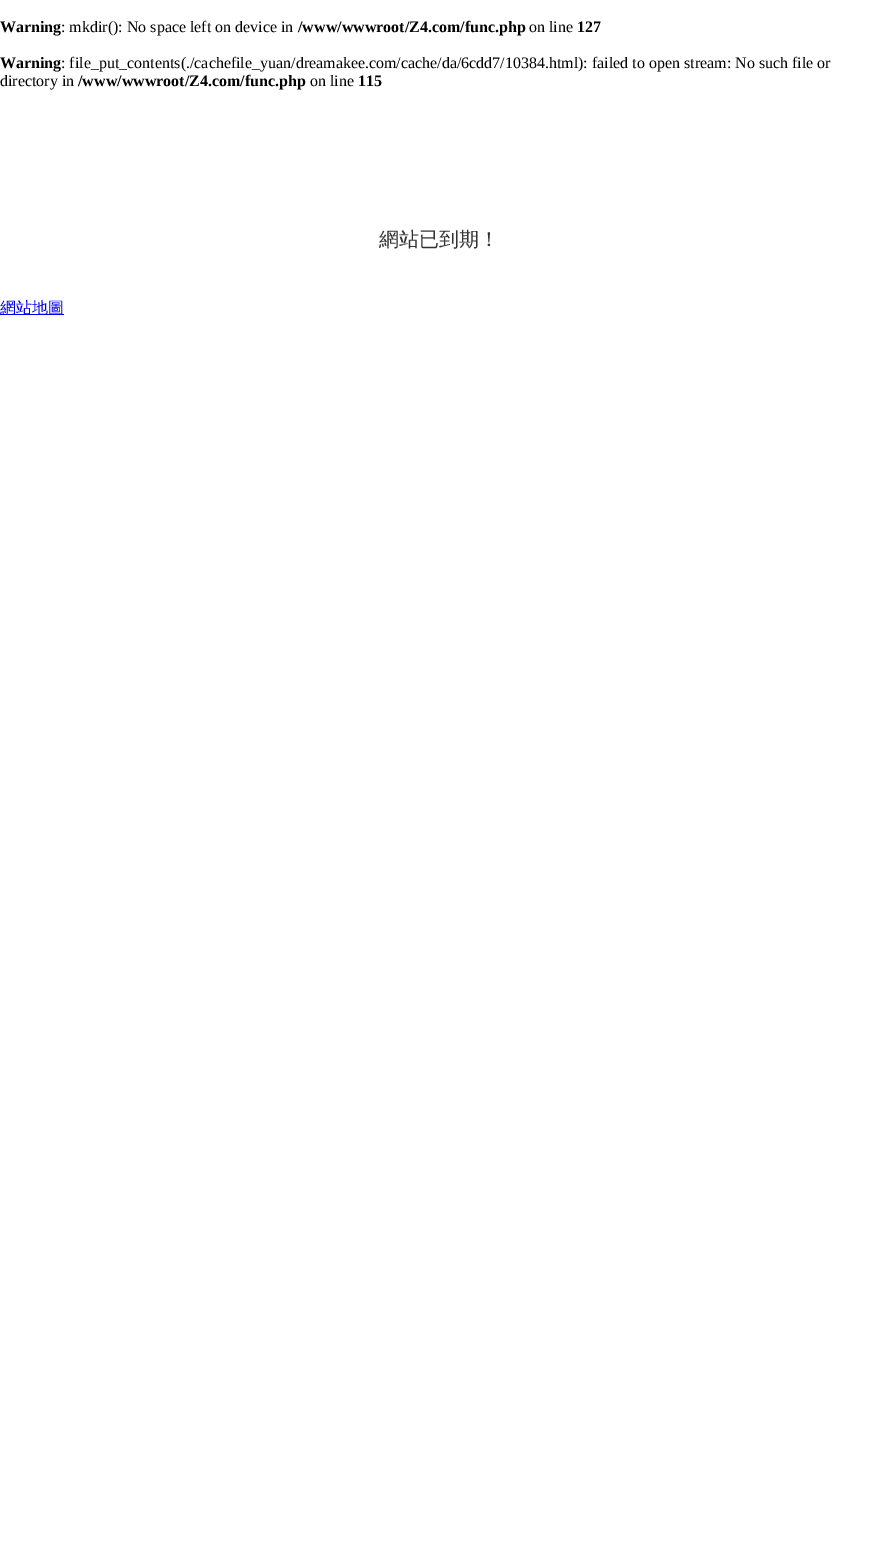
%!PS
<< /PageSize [878 1544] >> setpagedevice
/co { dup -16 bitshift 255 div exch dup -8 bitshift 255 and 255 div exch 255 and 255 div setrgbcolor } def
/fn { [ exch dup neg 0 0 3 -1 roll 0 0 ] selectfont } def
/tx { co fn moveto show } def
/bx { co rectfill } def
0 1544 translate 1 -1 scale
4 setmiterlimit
0 0 878 1544 16#FFFFFF bx
0 314 64 1 16#0000EE bx
(Warning) 0 32 /LiberationSerif-Bold 16 16#000000 tx
(: mkdir\(\): No space left on device in) 61 32 /LiberationSerif-Regular 16 16#000000 tx
(/www/wwwroot/Z4.com/func.php) 298 32 /LiberationSerif-Bold 16 16#000000 tx
(on line) 529 32 /LiberationSerif-Regular 16 16#000000 tx
(127) 577 32 /LiberationSerif-Bold 16 16#000000 tx
(Warning) 0 68 /LiberationSerif-Bold 16 16#000000 tx
(: file_put_contents\(./cachefile_yuan/dreamakee.com/cache/da/6cdd7/10384.html\): failed to open stream: No such file or) 61 68 /LiberationSerif-Regular 16 16#000000 tx
(directory in) 0 86 /LiberationSerif-Regular 16 16#000000 tx
(/www/wwwroot/Z4.com/func.php) 78 86 /LiberationSerif-Bold 16 16#000000 tx
(on line) 310 86 /LiberationSerif-Regular 16 16#000000 tx
(115) 358 86 /LiberationSerif-Bold 16 16#000000 tx
(網站已到期！) 379 246 /WenQuanYiZenHei-Medium 20 16#333333 tx
(網站地圖) 0 313 /WenQuanYiZenHei-Medium 16 16#0000EE tx
showpage
